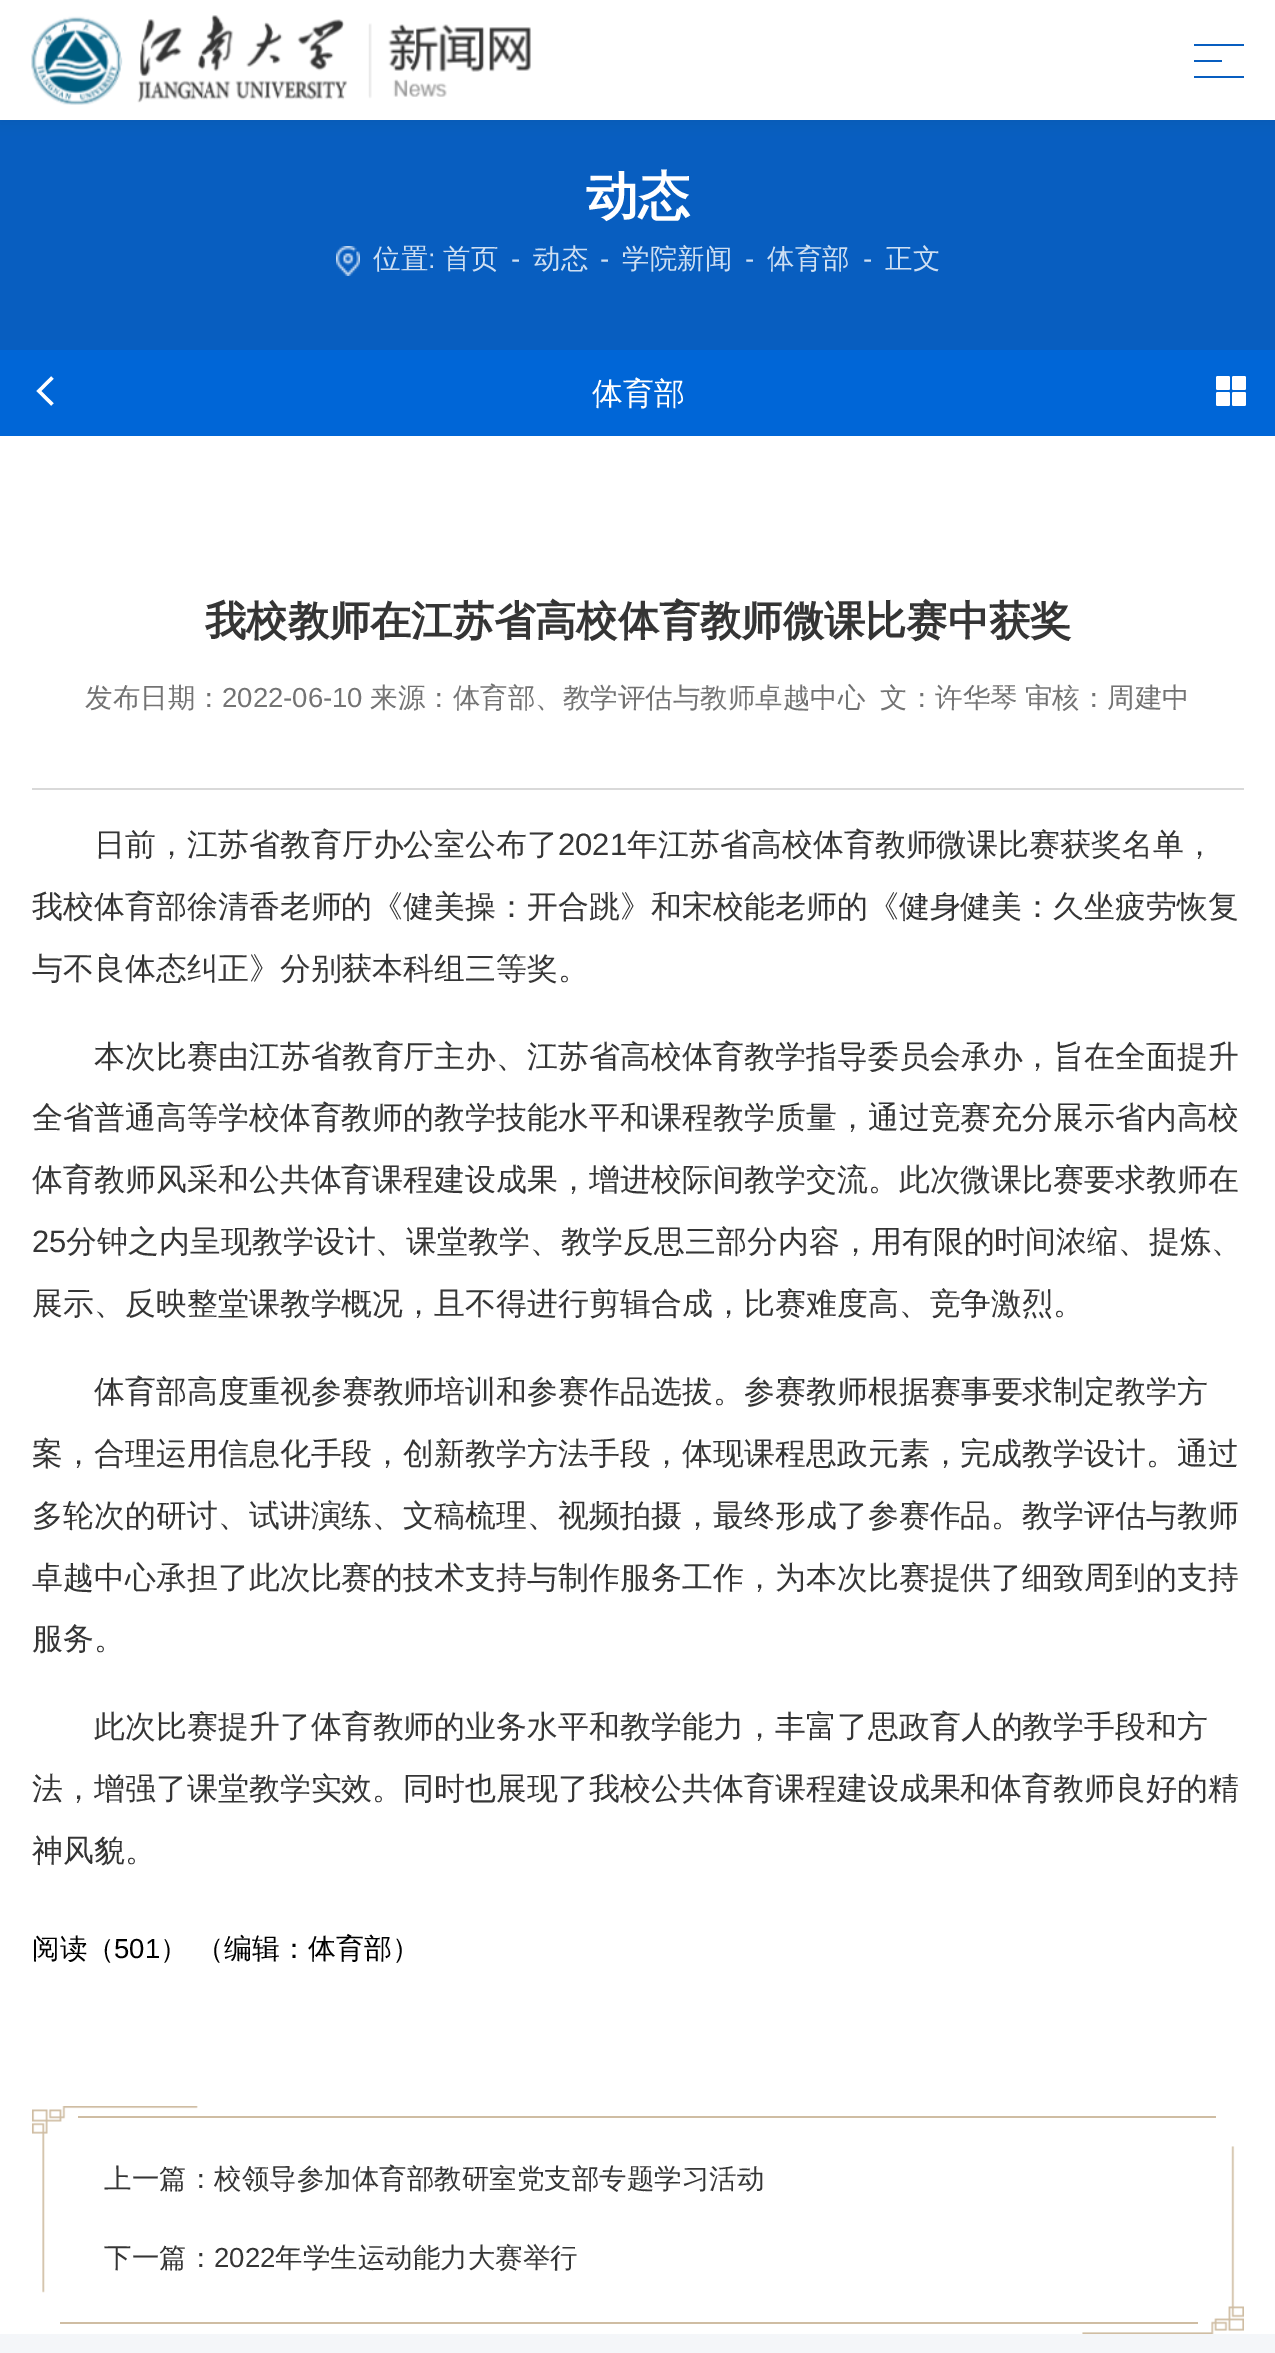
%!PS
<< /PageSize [1275 2353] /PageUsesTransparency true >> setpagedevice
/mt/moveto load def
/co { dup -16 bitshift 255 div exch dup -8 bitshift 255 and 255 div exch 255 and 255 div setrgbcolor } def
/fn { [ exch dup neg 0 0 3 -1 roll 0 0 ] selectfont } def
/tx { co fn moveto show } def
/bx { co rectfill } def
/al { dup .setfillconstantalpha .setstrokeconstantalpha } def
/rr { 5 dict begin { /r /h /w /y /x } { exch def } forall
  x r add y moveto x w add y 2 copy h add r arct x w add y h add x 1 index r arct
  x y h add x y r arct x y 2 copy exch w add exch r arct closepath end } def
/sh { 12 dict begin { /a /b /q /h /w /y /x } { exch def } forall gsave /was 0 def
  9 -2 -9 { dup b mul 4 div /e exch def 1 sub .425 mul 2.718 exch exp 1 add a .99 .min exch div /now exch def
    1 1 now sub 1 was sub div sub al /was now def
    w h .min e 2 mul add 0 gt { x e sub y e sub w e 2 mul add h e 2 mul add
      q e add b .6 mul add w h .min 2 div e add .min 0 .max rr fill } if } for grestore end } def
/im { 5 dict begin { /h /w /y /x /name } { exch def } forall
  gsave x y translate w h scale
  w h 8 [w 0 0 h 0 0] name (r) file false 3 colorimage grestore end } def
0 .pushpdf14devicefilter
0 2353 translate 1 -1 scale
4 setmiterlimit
0 0 1275 2353 16#F4F6F9 bx
0 120 1275 230 16#085EC0 bx
16#00373B co
0 0 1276 120 0 7 .1 sh
0 0 1275 120 16#FFFFFF bx
(media/1.raw) 31 15 500 90 im
1194 60 28 2 16#085EC0 bx
1194 44 50 2 16#085EC0 bx
1194 76 50 2 16#085EC0 bx
(media/2.raw) 336 246 24 30 im
0 350 1275 86 16#0066D7 bx
(media/3.raw) 36 376 18 30 im
(media/4.raw) 1216 376 30 30 im
0 436 1275 1898 16#FFFFFF bx
32 788 1212 2 16#D9D9D9 bx
(media/5.raw) 32 2106 166 187 im
(media/6.raw) 1082 2146 162 188 im
78 2116 1138 2 16#CFBDA3 bx
60 2322 1138 2 16#CFBDA3 bx
(动态) 586 214 /WenQuanYiZenHei-Bold 52 16#FFFFFF tx
(位置) 373 268 /WenQuanYiZenHei-Medium 27.5 16#CEDFF2 tx
(:) 428 268 /LiberationSans-Regular 27.5 16#CEDFF2 tx
(首页) 443 268 /WenQuanYiZenHei-Medium 27.5 16#CEDFF2 tx
(-) 511 268 /LiberationSans-Regular 27.5 16#CEDFF2 tx
(动态) 533 268 /WenQuanYiZenHei-Medium 27.5 16#CEDFF2 tx
(-) 600 268 /LiberationSans-Regular 27.5 16#CEDFF2 tx
(学院新闻) 622 268 /WenQuanYiZenHei-Medium 27.5 16#CEDFF2 tx
(-) 745 268 /LiberationSans-Regular 27.5 16#CEDFF2 tx
(体育部) 767 268 /WenQuanYiZenHei-Medium 27.5 16#CEDFF2 tx
(-) 863 268 /LiberationSans-Regular 27.5 16#CEDFF2 tx
(正文) 885 268 /WenQuanYiZenHei-Medium 27.5 16#CEDFF2 tx
(体育部) 592 404 /WenQuanYiZenHei-Medium 30.95 16#FFFFFF tx
(我校教师在江苏省高校体育教师微课比赛中获奖) 205 635 /WenQuanYiZenHei-Bold 41.25 16#353535 tx
(发布日期：) 85 707 /WenQuanYiZenHei-Medium 27.5 16#737373 tx
(2022-06-10) 222 707 /LiberationSans-Regular 27.5 16#737373 tx
(来源：体育部、教学评估与教师卓越中心) 370 707 /WenQuanYiZenHei-Medium 27.5 16#737373 tx
880 707 mt -1 0 32 (文：许华琴 审核：周建中) widthshow
(日前，江苏省教育厅办公室公布了) 94 855 /WenQuanYiZenHei-Medium 30.95 16#353535 tx
(2021) 558 855 /LiberationSans-Regular 30.95 16#353535 tx
(年江苏省高校体育教师微课比赛获奖名单，) 627 855 /WenQuanYiZenHei-Medium 30.95 16#353535 tx
(我校体育部徐清香老师的《健美操：开合跳》和宋校能老师的《健身健美：久坐疲劳恢复) 32 917 /WenQuanYiZenHei-Medium 30.95 16#353535 tx
(与不良体态纠正》分别获本科组三等奖。) 32 979 /WenQuanYiZenHei-Medium 30.95 16#353535 tx
(本次比赛由江苏省教育厅主办、江苏省高校体育教学指导委员会承办，旨在全面提升) 94 1067 /WenQuanYiZenHei-Medium 30.95 16#353535 tx
(全省普通高等学校体育教师的教学技能水平和课程教学质量，通过竞赛充分展示省内高校) 32 1128 /WenQuanYiZenHei-Medium 30.95 16#353535 tx
(体育教师风采和公共体育课程建设成果，增进校际间教学交流。此次微课比赛要求教师在) 32 1190 /WenQuanYiZenHei-Medium 30.95 16#353535 tx
(25) 32 1252 /LiberationSans-Regular 30.95 16#353535 tx
(分钟之内呈现教学设计、课堂教学、教学反思三部分内容，用有限的时间浓缩、提炼、) 66 1252 /WenQuanYiZenHei-Medium 30.95 16#353535 tx
(展示、反映整堂课教学概况，且不得进行剪辑合成，比赛难度高、竞争激烈。) 32 1314 /WenQuanYiZenHei-Medium 30.95 16#353535 tx
(体育部高度重视参赛教师培训和参赛作品选拔。参赛教师根据赛事要求制定教学方) 94 1402 /WenQuanYiZenHei-Medium 30.95 16#353535 tx
(案，合理运用信息化手段，创新教学方法手段，体现课程思政元素，完成教学设计。通过) 32 1464 /WenQuanYiZenHei-Medium 30.95 16#353535 tx
(多轮次的研讨、试讲演练、文稿梳理、视频拍摄，最终形成了参赛作品。教学评估与教师) 32 1526 /WenQuanYiZenHei-Medium 30.95 16#353535 tx
(卓越中心承担了此次比赛的技术支持与制作服务工作，为本次比赛提供了细致周到的支持) 32 1588 /WenQuanYiZenHei-Medium 30.95 16#353535 tx
(服务。) 32 1649 /WenQuanYiZenHei-Medium 30.95 16#353535 tx
(此次比赛提升了体育教师的业务水平和教学能力，丰富了思政育人的教学手段和方) 94 1737 /WenQuanYiZenHei-Medium 30.95 16#353535 tx
(法，增强了课堂教学实效。同时也展现了我校公共体育课程建设成果和体育教师良好的精) 32 1799 /WenQuanYiZenHei-Medium 30.95 16#353535 tx
(神风貌。) 32 1861 /WenQuanYiZenHei-Medium 30.95 16#353535 tx
(阅读（) 32 1958 /WenQuanYiZenHei-Medium 27.5 16#000000 tx
(501) 114 1958 /LiberationSans-Regular 27.5 16#000000 tx
(）) 160 1958 /WenQuanYiZenHei-Medium 27.5 16#000000 tx
(（编辑：体育部）) 196 1958 /WenQuanYiZenHei-Medium 28 16#000000 tx
(上一篇：校领导参加体育部教研室党支部专题学习活动) 104 2188 /WenQuanYiZenHei-Medium 27.5 16#353535 tx
(下一篇：) 104 2267 /WenQuanYiZenHei-Medium 27.5 16#353535 tx
(2022) 214 2267 /LiberationSans-Regular 27.5 16#353535 tx
(年学生运动能力大赛举行) 275 2267 /WenQuanYiZenHei-Medium 27.5 16#353535 tx
.poppdf14devicefilter showpage
